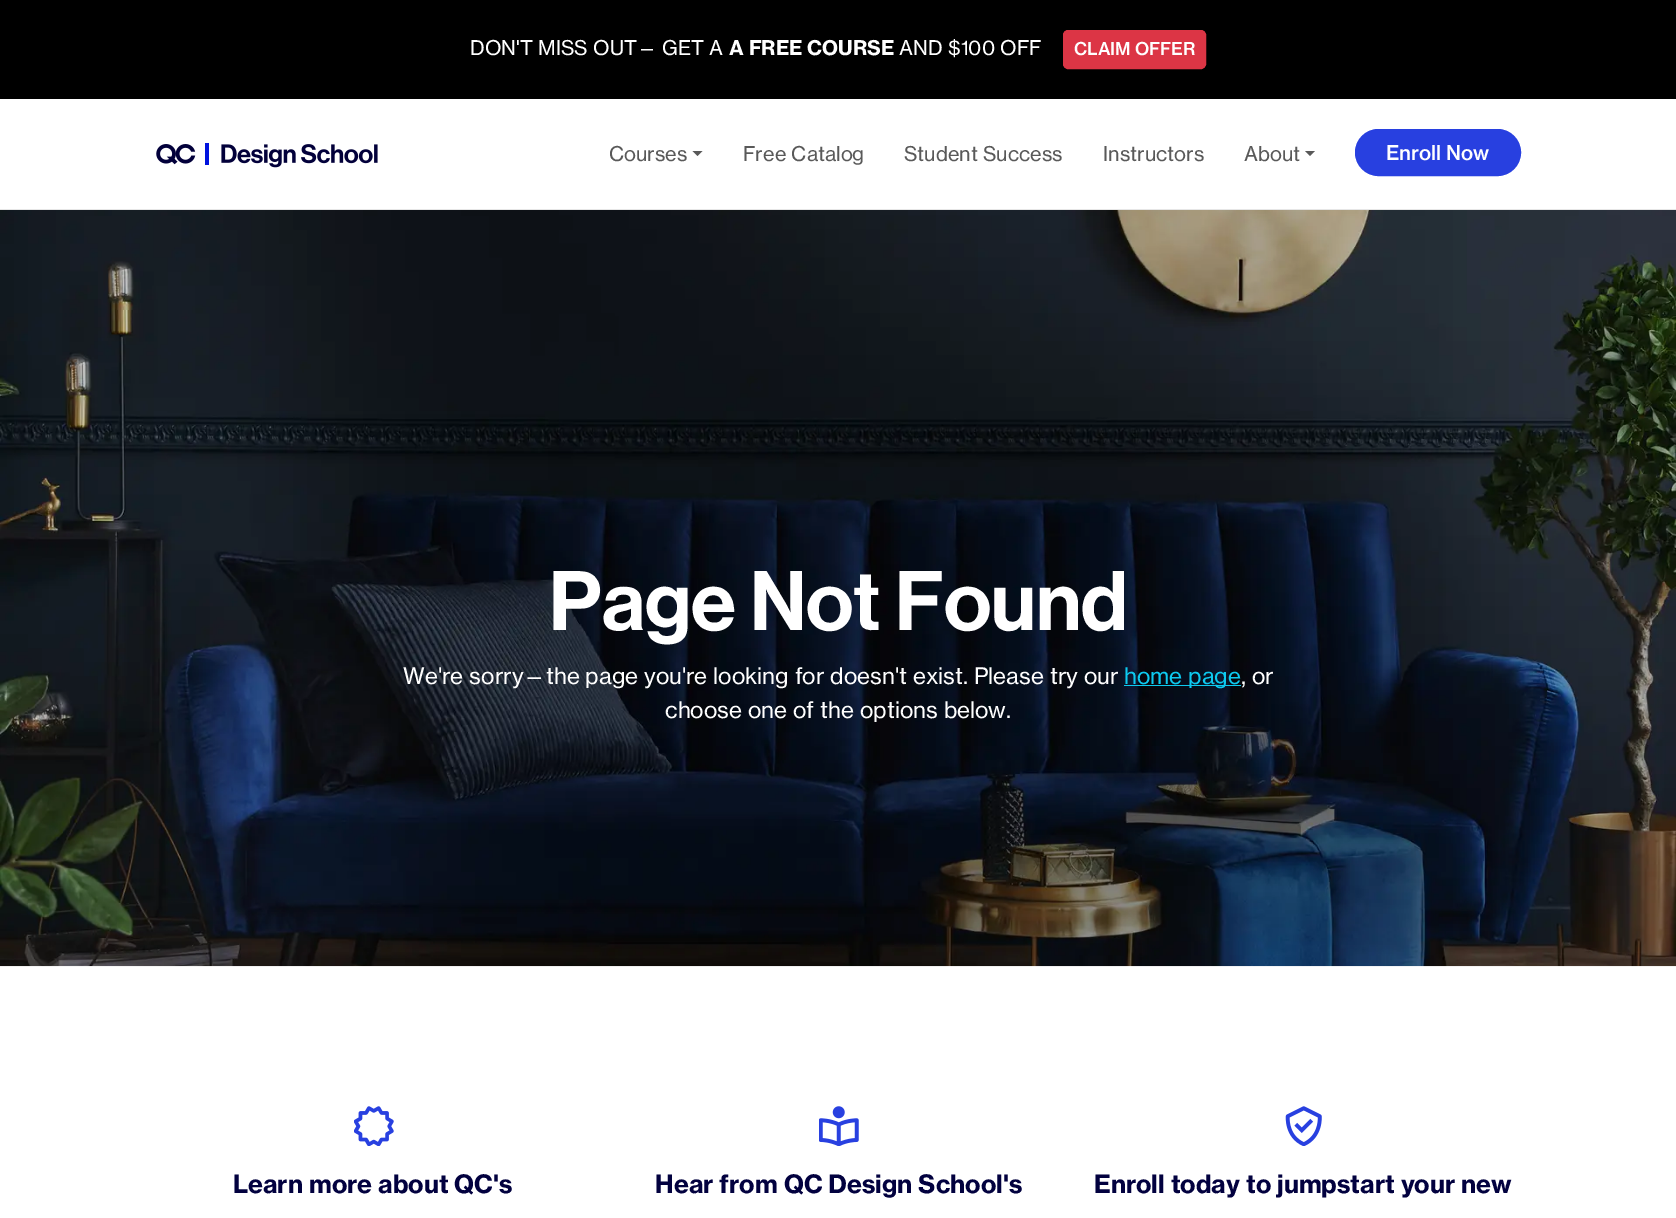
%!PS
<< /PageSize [1676 1218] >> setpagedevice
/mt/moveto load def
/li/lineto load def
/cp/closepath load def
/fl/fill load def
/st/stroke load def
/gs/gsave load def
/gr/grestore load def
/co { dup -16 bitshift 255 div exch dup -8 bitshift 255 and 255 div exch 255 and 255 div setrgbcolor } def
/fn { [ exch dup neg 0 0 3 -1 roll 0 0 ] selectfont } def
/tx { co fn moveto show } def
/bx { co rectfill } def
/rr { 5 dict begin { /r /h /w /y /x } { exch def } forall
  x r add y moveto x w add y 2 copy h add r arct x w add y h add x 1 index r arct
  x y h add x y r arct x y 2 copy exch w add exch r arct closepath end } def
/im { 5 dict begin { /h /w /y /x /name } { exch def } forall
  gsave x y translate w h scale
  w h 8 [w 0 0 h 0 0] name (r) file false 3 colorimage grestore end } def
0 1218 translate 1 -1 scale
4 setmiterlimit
0 0 1676 1218 16#FFFFFF bx
0 0 1676 99 16#000000 bx
16#DC3545 co
1063.5 30.5 142 38 4.5 rr gs fl gr
st
0 209 1676 1 16#E6E6E6 bx
(media/1.raw) 156 143 222 25 im
16#595959 co
692.5 151 mt 702.5 151 li 697.5 156 li cp fl
1305 151 mt 1315 151 li 1310 156 li cp fl
16#2840E0 co
1355.5 129.5 165 46 23 rr gs fl gr
st
(media/2.raw) 0 210 1676 757 im
1124 685 117 1 16#0DCAF0 bx
(media/3.raw) 354 1106 40 40 im
(media/4.raw) 819 1106 40 40 im
(media/5.raw) 1285 1106 37 40 im
(DON'T MISS OUT— GET A) 470 55 /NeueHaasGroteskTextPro-Regular 20 16#FFFFFF tx
(A FREE COURSE) 729 55 /NeueHaasGroteskTextPro-Bold 20 16#FFFFFF tx
(AND $100 OFF) 899 55 /NeueHaasGroteskTextPro-Regular 20 16#FFFFFF tx
(CLAIM OFFER) 1074 55 /NeueHaasGroteskTextPro-Medium 17.5 16#FFFFFF tx
(Courses) 609 161 /NeueHaasGroteskTextPro-Regular 20 16#595959 tx
(Free Catalog) 743 161 /NeueHaasGroteskTextPro-Regular 20 16#595959 tx
(Student Success) 904 161 /NeueHaasGroteskTextPro-Regular 20 16#595959 tx
(Instructors) 1103 161 /NeueHaasGroteskTextPro-Regular 20 16#595959 tx
(About) 1244 161 /NeueHaasGroteskTextPro-Regular 20 16#595959 tx
(Enroll Now) 1386 160 /NeueHaasGroteskTextPro-Medium 20 16#FFFFFF tx
(Page Not Found) 549 630 /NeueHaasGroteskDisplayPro-Medium 82.5 16#FFFFFF tx
(We're sorry—the page you're looking for doesn't exist. Please try our) 403 684 /NeueHaasGroteskTextPro-Regular 22.5 16#FFFFFF tx
(home page) 1124 684 /NeueHaasGroteskTextPro-Regular 22.5 16#0DCAF0 tx
(, or) 1241 684 /NeueHaasGroteskTextPro-Regular 22.5 16#FFFFFF tx
(choose one of the options below.) 665 718 /NeueHaasGroteskTextPro-Regular 22.5 16#FFFFFF tx
(Learn more about QC's) 233 1193 /NeueHaasGroteskTextPro-Bold 25 16#02013F tx
(Hear from QC Design School's) 655 1193 /NeueHaasGroteskTextPro-Bold 25 16#02013F tx
(Enroll today to jumpstart your new) 1094 1193 /NeueHaasGroteskTextPro-Bold 25 16#02013F tx
showpage
